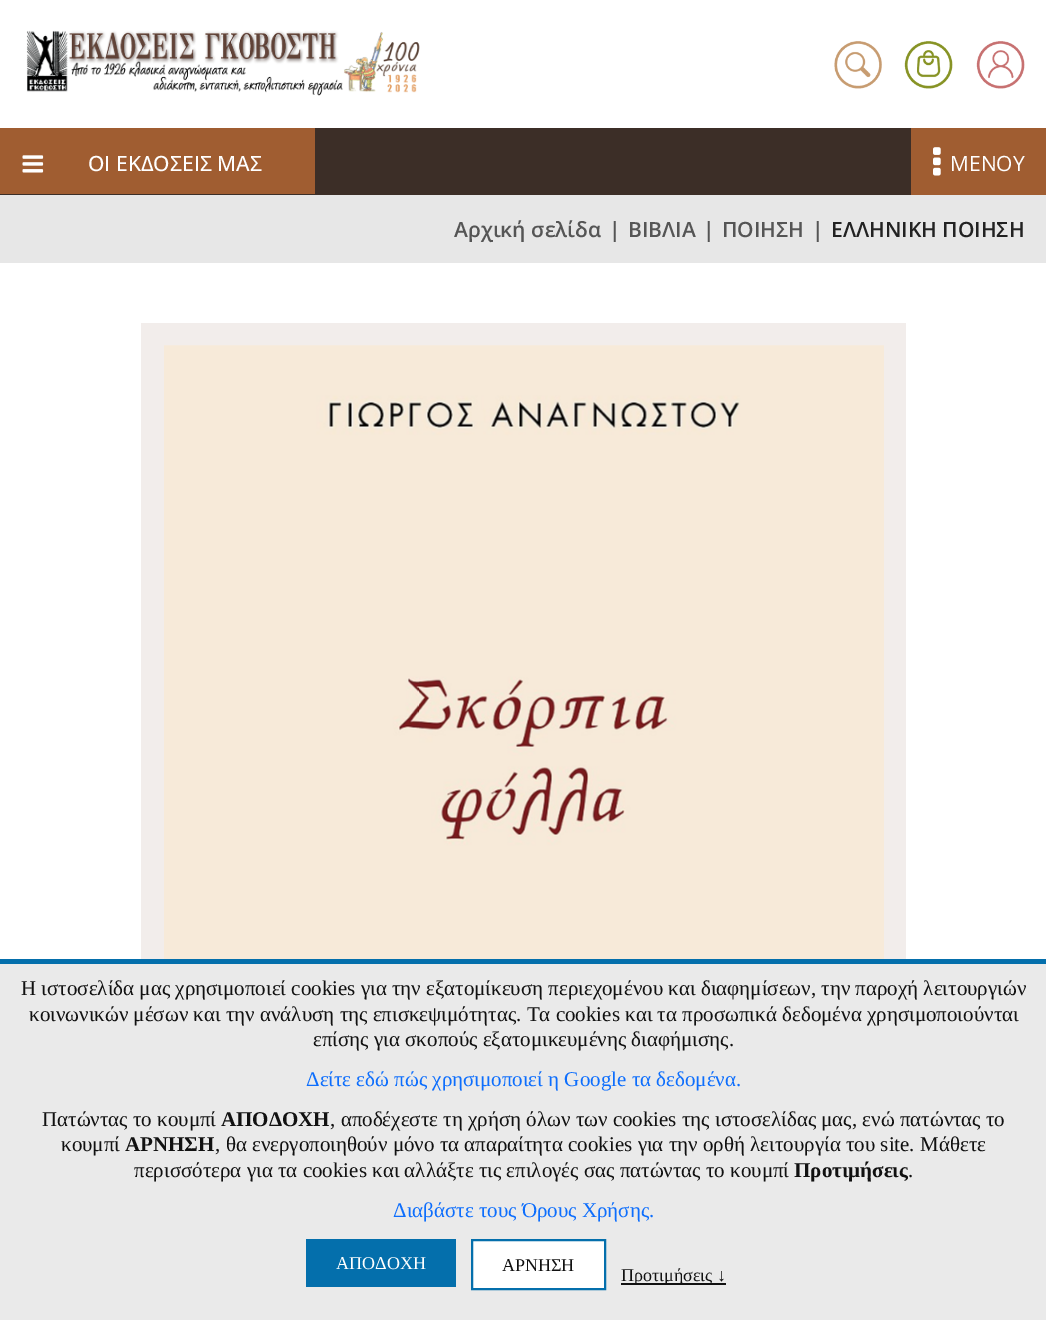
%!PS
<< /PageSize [1046 1320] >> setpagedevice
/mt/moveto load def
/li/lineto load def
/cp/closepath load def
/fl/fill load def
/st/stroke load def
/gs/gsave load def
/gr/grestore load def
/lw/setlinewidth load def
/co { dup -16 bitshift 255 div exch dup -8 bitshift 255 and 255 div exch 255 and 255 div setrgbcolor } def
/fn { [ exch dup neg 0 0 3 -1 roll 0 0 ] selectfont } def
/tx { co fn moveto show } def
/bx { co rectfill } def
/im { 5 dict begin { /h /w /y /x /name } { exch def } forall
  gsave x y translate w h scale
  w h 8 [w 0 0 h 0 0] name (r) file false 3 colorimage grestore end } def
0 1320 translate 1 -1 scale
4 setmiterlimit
0 0 1046 1320 16#FFFFFF bx
(media/1.raw) 26 30 394 66 im
(media/2.raw) 834 41 48 48 im
(media/3.raw) 904 41 49 48 im
(media/4.raw) 976 41 49 48 im
0 128 911 67 16#3C2E27 bx
0 128 315 66 16#A05D31 bx
(media/5.raw) 22 155 22 18 im
911 128 135 67 16#A05D31 bx
(media/6.raw) 933 147 8 29 im
0 195 1046 68 16#E7E7E7 bx
141 323 765 636 16#F2EDEB bx
(media/7.raw) 164 345 720 614 im
0 964 1046 356 16#EAEAEA bx
0 959 1046 5 16#046FAC bx
306 1239 150 48 16#046FAC bx
16#FFFFFF co
472 1240 mt 605 1240 li 605 1289 li 472 1289 li cp gs fl gr
16#046FAC co
2 lw
st
621 1283 105 2 16#111111 bx
(ΟΙ ΕΚΔΟΣΕΙΣ ΜΑΣ) 88 171 /OpenSans-Medium 21 16#FFFFFF tx
(ΜΕΝΟΥ) 950 171 /OpenSans-Regular 21 16#FFFFFF tx
(Αρχική σελίδα) 454 237 /OpenSans-SemiBold 21 16#555555 tx
(|) 609 237 /OpenSans-SemiBold 21 16#555555 tx
(ΒΙΒΛΙΑ) 628 237 /OpenSans-SemiBold 21 16#555555 tx
(|) 703 237 /OpenSans-SemiBold 21 16#555555 tx
(ΠΟΙΗΣΗ) 722 237 /OpenSans-SemiBold 21 16#555555 tx
(|) 812 237 /OpenSans-SemiBold 21 16#555555 tx
(ΕΛΛΗΝΙΚΗ ΠΟΙΗΣΗ) 831 237 /OpenSans-SemiBold 21 16#222222 tx
(Η ιστοσελίδα μας χρησιμοποιεί cookies για την εξατομίκευση περιεχομένου και διαφημίσεων, την παροχή λειτουργιών) 21 995 /LiberationSerif-Regular 21 16#111111 tx
(κοινωνικών μέσων και την ανάλυση της επισκεψιμότητας. Τα cookies και τα προσωπικά δεδομένα χρησιμοποιούνται) 29 1021 /LiberationSerif-Regular 21 16#111111 tx
(επίσης για σκοπούς εξατομικευμένης διαφήμισης.) 313 1046 /LiberationSerif-Regular 21 16#111111 tx
(Δείτε εδώ πώς χρησιμοποιεί η Google τα δεδομένα.) 306 1086 /LiberationSerif-Regular 21 16#0D6EFD tx
(Πατώντας το κουμπί) 42 1126 /LiberationSerif-Regular 21 16#111111 tx
(ΑΠΟΔΟΧΗ) 221 1126 /LiberationSerif-Bold 21 16#111111 tx
(, αποδέχεστε τη χρήση όλων των cookies της ιστοσελίδας μας, ενώ πατώντας το) 330 1126 /LiberationSerif-Regular 21 16#111111 tx
(κουμπί) 61 1151 /LiberationSerif-Regular 21 16#111111 tx
(ΑΡΝΗΣΗ) 125 1151 /LiberationSerif-Bold 21 16#111111 tx
(, θα ενεργοποιηθούν μόνο τα απαραίτητα cookies για την ορθή λειτουργία του site. Μάθετε) 215 1151 /LiberationSerif-Regular 21 16#111111 tx
(περισσότερα για τα cookies και αλλάξτε τις επιλογές σας πατώντας το κουμπί) 134 1177 /LiberationSerif-Regular 21 16#111111 tx
(Προτιμήσεις) 794 1177 /LiberationSerif-Bold 21 16#111111 tx
(.) 908 1177 /LiberationSerif-Regular 21 16#111111 tx
(Διαβάστε τους Όρους Χρήσης.) 393 1217 /LiberationSerif-Regular 21 16#0D6EFD tx
(ΑΠΟΔΟΧΗ) 336 1269 /LiberationSerif-Regular 18 16#FFFFFF tx
(ΑΡΝΗΣΗ) 502 1271 /LiberationSerif-Regular 18 16#111111 tx
(Προτιμήσεις ↓) 621 1281 /LiberationSerif-Regular 18 16#111111 tx
showpage
